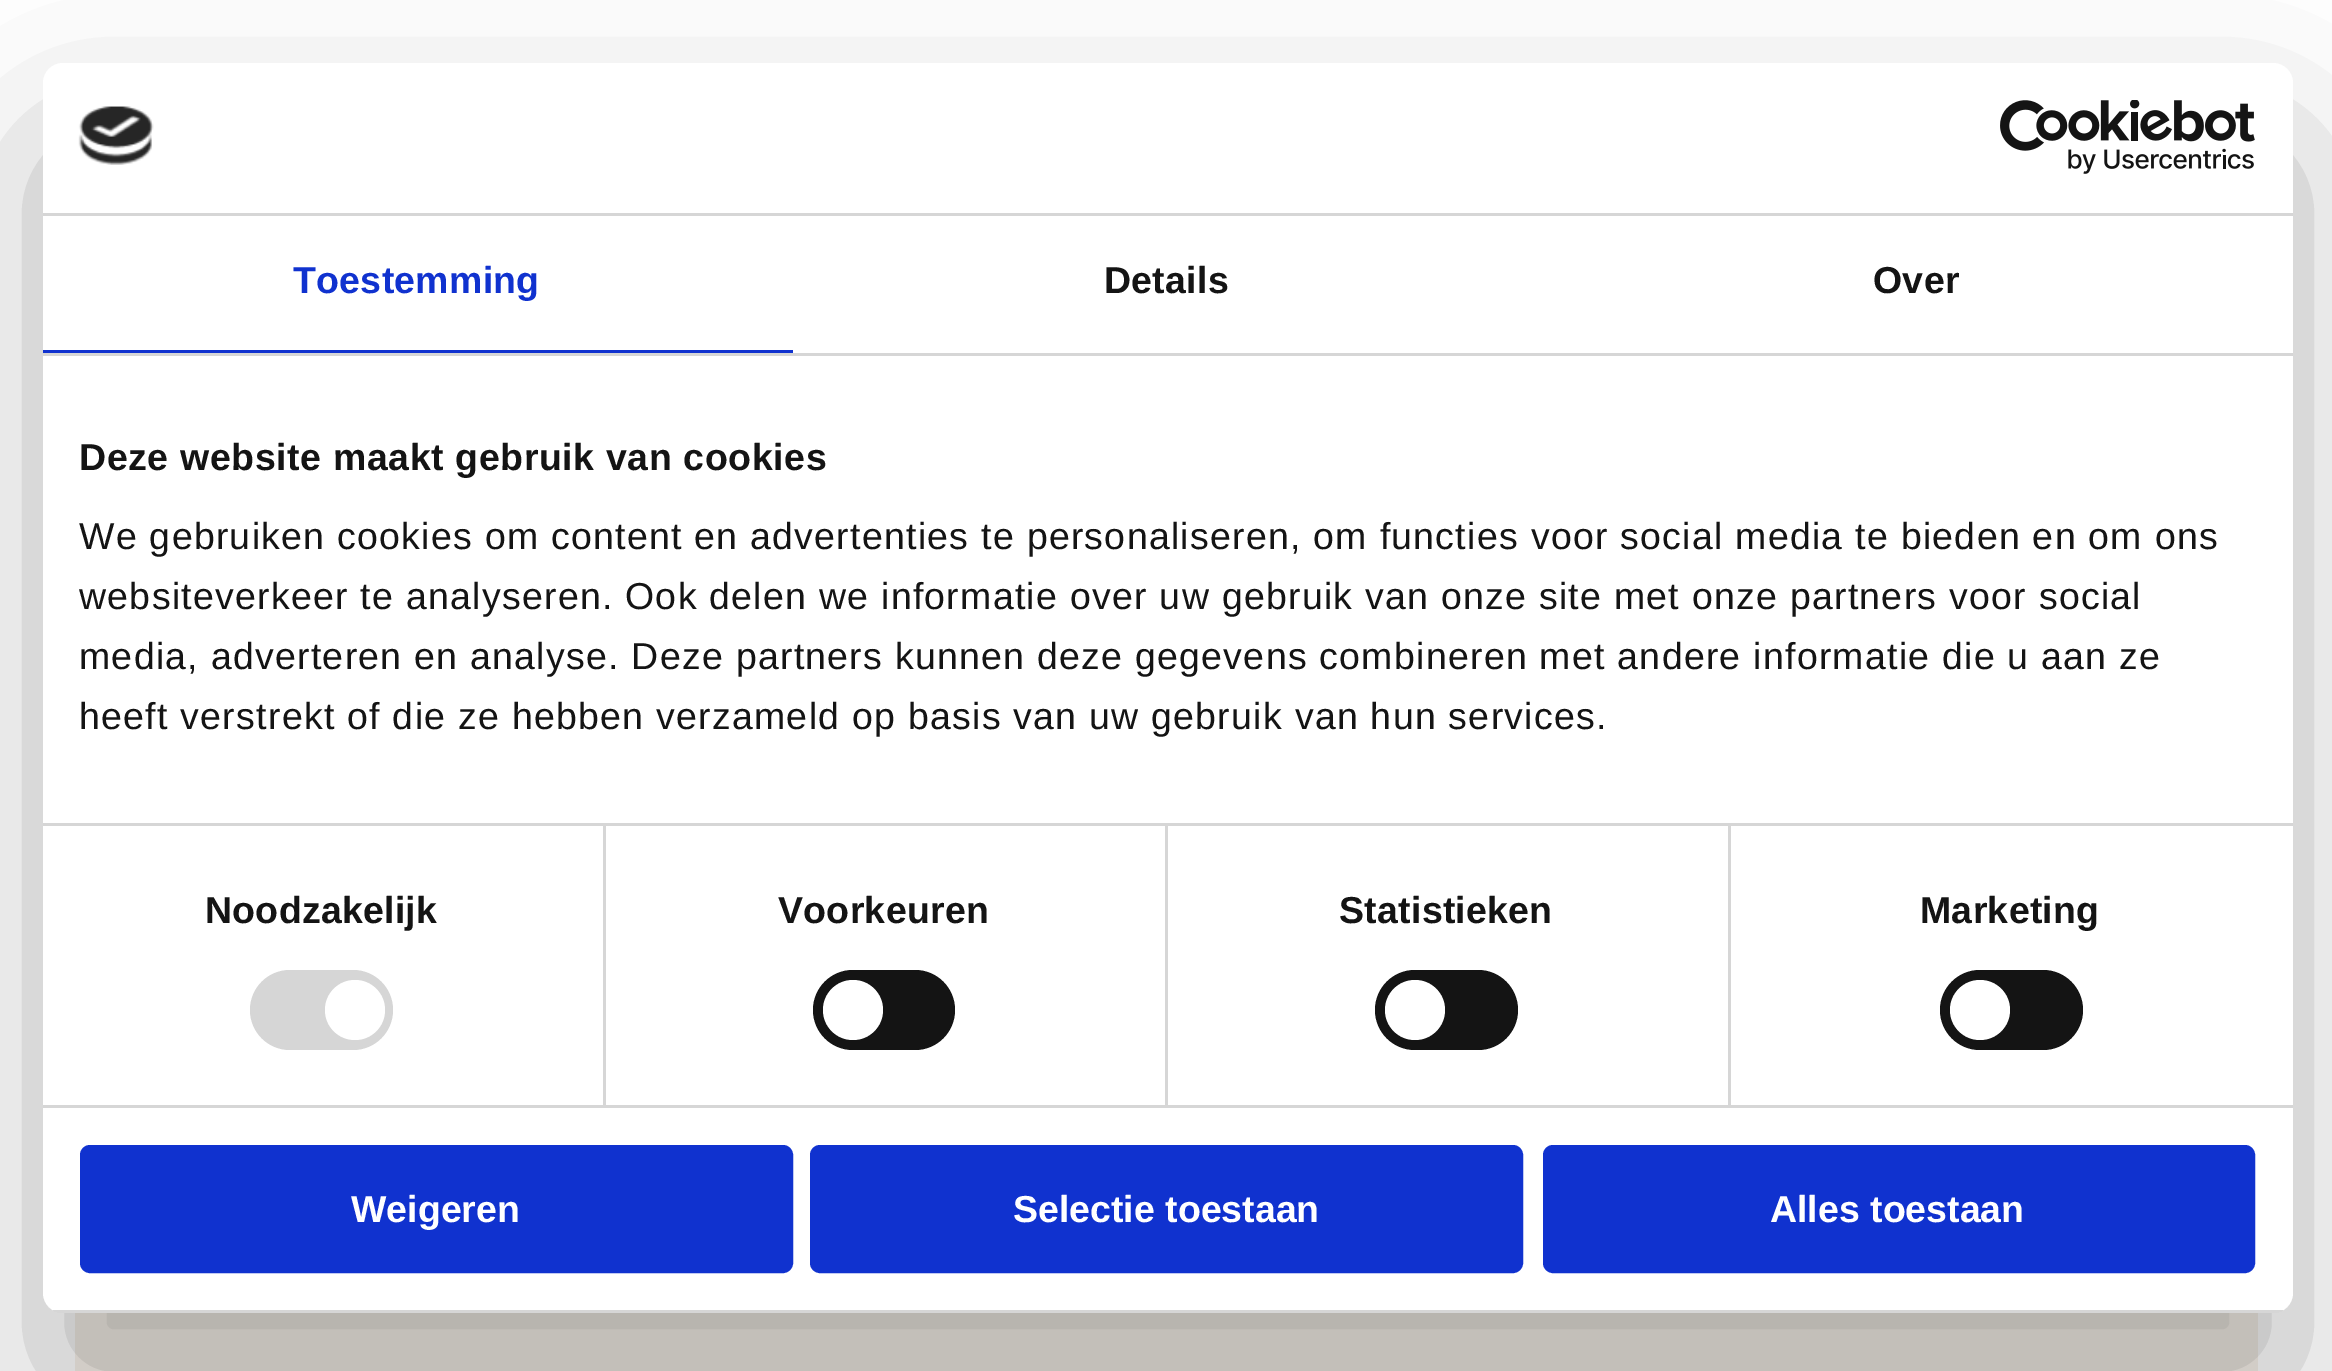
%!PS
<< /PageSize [2332 1371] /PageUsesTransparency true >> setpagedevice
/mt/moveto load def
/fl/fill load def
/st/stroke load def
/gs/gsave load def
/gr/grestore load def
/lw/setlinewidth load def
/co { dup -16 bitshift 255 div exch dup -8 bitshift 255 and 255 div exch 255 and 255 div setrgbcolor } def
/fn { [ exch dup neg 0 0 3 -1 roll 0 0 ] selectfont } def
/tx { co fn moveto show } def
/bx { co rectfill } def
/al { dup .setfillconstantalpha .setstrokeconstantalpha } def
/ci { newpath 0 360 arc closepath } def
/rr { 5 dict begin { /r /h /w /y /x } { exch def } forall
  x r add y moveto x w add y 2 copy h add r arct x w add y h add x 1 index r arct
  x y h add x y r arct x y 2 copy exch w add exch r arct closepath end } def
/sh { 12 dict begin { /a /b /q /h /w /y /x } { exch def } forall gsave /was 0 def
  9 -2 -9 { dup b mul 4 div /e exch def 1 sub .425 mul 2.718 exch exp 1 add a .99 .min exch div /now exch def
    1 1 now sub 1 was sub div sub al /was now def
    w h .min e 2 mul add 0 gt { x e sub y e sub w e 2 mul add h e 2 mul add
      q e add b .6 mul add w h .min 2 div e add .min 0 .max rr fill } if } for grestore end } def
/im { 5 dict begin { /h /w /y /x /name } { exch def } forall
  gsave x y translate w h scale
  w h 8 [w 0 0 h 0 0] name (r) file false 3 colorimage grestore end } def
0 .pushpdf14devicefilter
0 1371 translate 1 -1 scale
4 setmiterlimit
0 0 2332 1371 16#FFFFFF bx
75 1313 2183 58 16#F7F2EA bx
16#000000 co
43 143 2250 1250 20 85 .3 sh
16#FFFFFF co
43 63 2250 1250 20 rr fl
43 213 2250 3 16#D6D6D6 bx
(media/1.raw) 78 106 76 59 im
(media/2.raw) 2000 100 255 74 im
43 353 2250 3 16#D6D6D6 bx
43 350 750 3 16#1032CF bx
603 825 3 280 16#D6D6D6 bx
1165 825 3 280 16#D6D6D6 bx
1728 825 3 280 16#D6D6D6 bx
43 823 2250 3 16#D6D6D6 bx
43 1105 2250 3 16#D6D6D6 bx
250 970 143 80 40 rr fl
16#FFFFFF co
355 1010 30 ci fl
16#141414 co
813 970 142 80 40 rr fl
16#FFFFFF co
853 1010 30 ci fl
16#141414 co
1375 970 143 80 40 rr fl
16#FFFFFF co
1415 1010 30 ci fl
16#141414 co
1940 970 143 80 40 rr fl
16#FFFFFF co
1980 1010 30 ci fl
gs
43 63 2250 1250 20 rr clip newpath
52 1310 2232 3 16#D6D6D6 bx
gr
16#1032CF co
82.5 1147.5 708 123 7.5 rr gs fl gr
5 lw
st
812.5 1147.5 708 123 7.5 rr gs fl gr
st
1545.5 1147.5 707 123 7.5 rr gs fl gr
st
/LiberationSans-Bold 37.5 fn
293 293 mt .25 0 (Toestemming) ashow
16#141414 co
1104 293 mt .25 0 (Details) ashow
1873 293 mt .25 0 (Over) ashow
79 470 mt .6 0 (Deze website maakt gebruik van cookies) ashow
/LiberationSans-Regular 37.5 fn
79 549 mt 1.25 0 (We gebruiken cookies om content en advertenties te personaliseren, om functies voor social media te bieden en om ons) ashow
79 609 mt 1.25 0 (websiteverkeer te analyseren. Ook delen we informatie over uw gebruik van onze site met onze partners voor social) ashow
79 669 mt 1.25 0 (media, adverteren en analyse. Deze partners kunnen deze gegevens combineren met andere informatie die u aan ze) ashow
79 729 mt 1.25 0 (heeft verstrekt of die ze hebben verzameld op basis van uw gebruik van hun services.) ashow
/LiberationSans-Bold 37.5 fn
205 923 mt .25 0 (Noodzakelijk) ashow
778 923 mt .25 0 (Voorkeuren) ashow
1339 923 mt .25 0 (Statistieken) ashow
1920 923 mt .25 0 (Marketing) ashow
(Weigeren) 351 1222 /LiberationSans-Bold 37.5 16#FFFFFF tx
(Selectie toestaan) 1013 1222 /LiberationSans-Bold 37.5 16#FFFFFF tx
(Alles toestaan) 1770 1222 /LiberationSans-Bold 37.5 16#FFFFFF tx
.poppdf14devicefilter showpage
